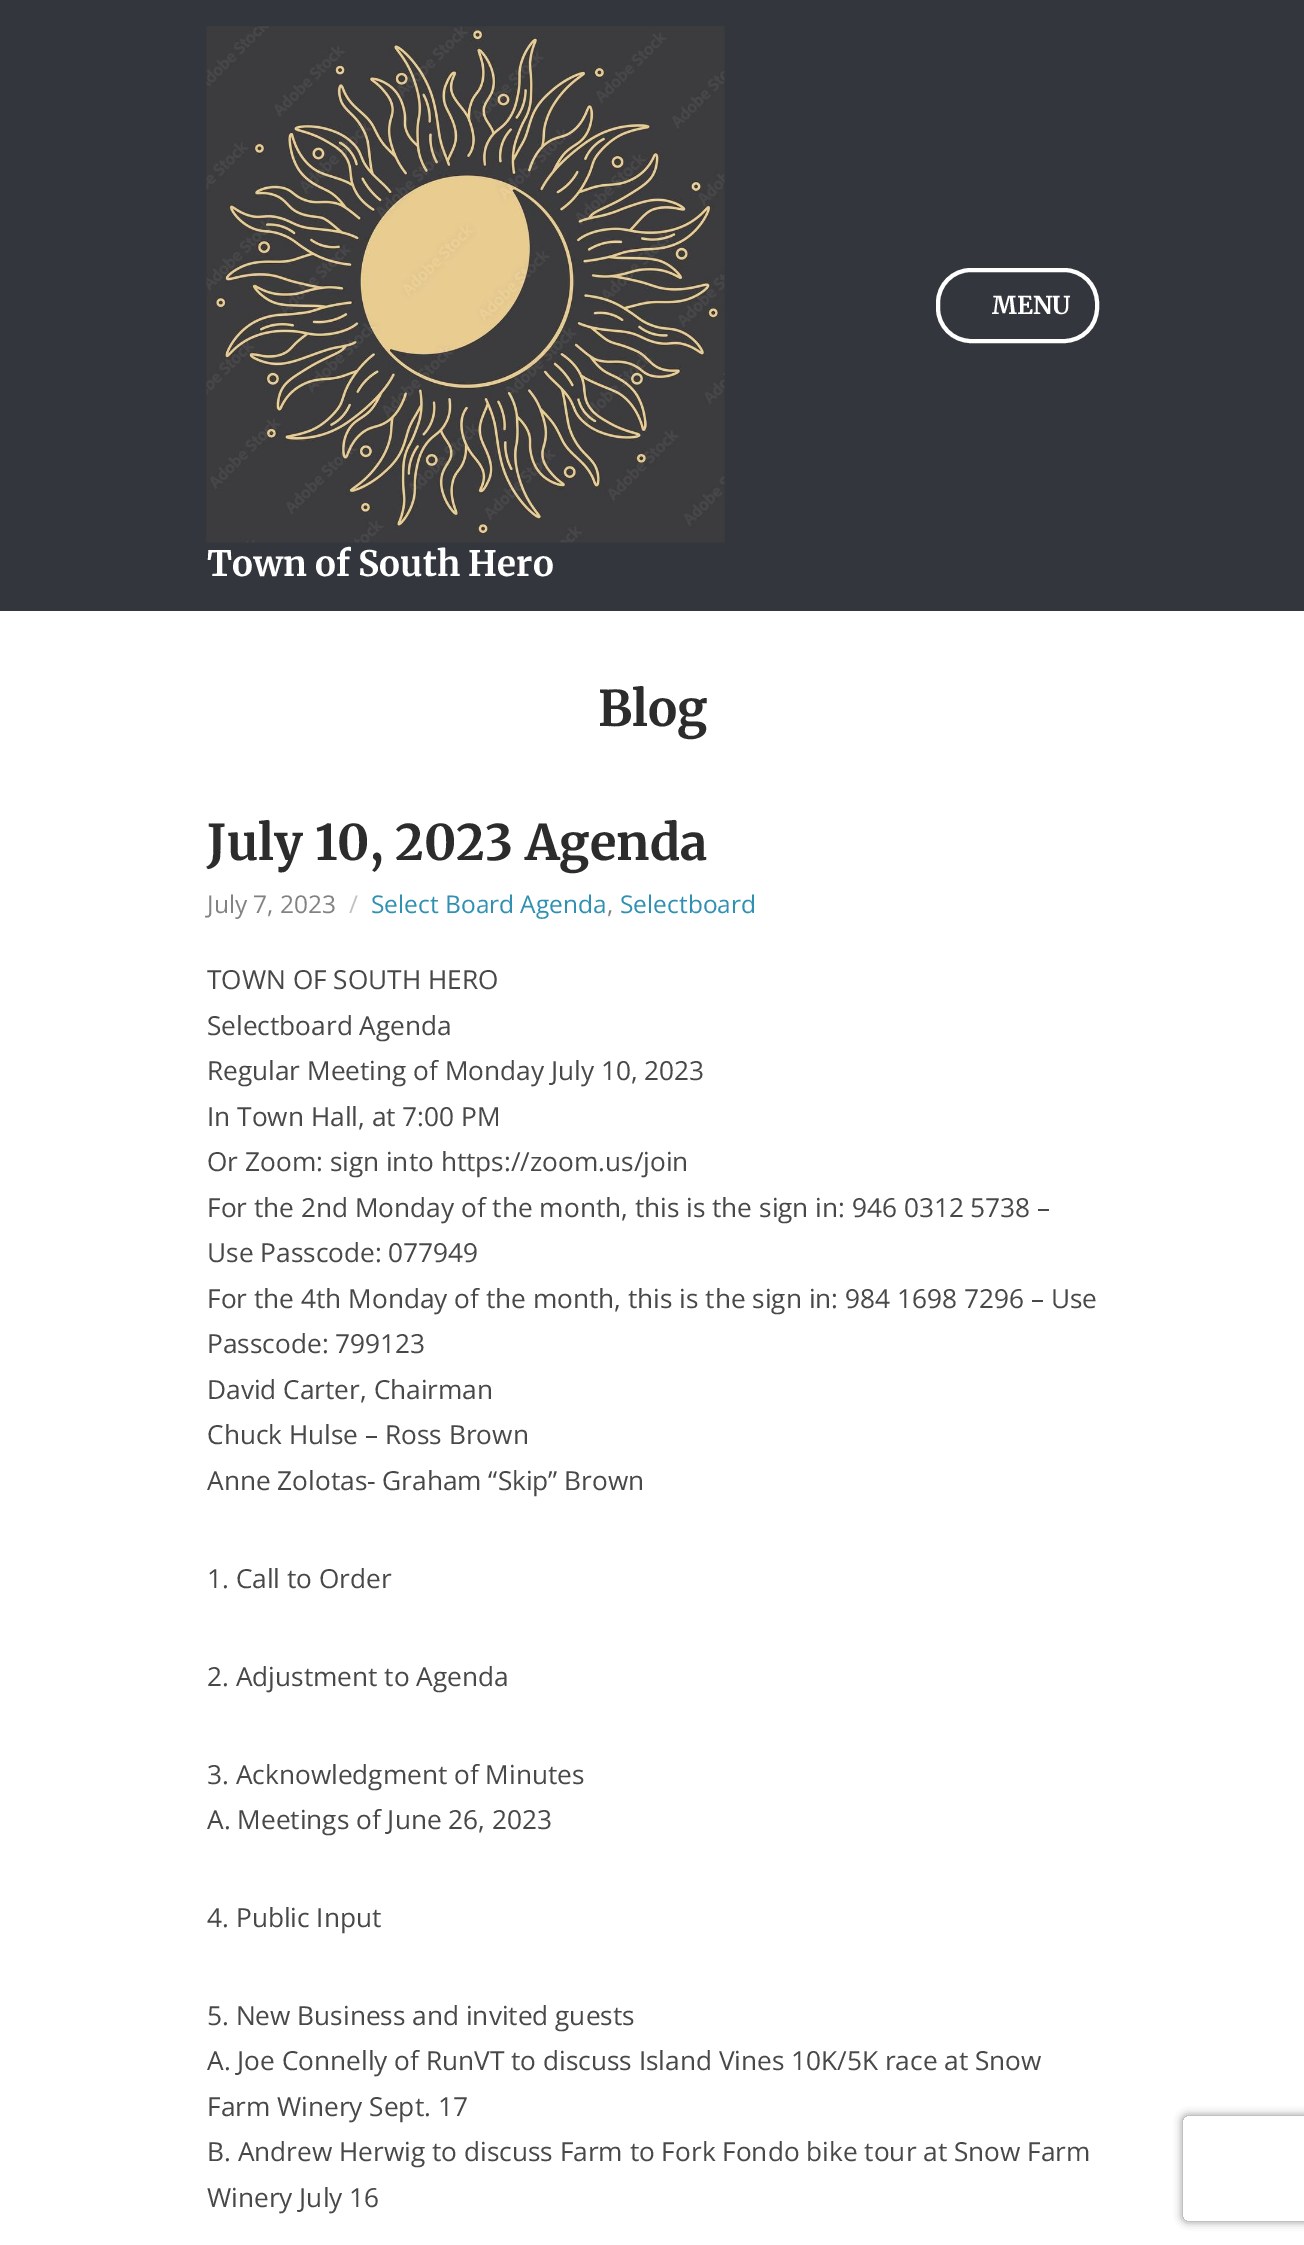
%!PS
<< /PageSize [1304 2245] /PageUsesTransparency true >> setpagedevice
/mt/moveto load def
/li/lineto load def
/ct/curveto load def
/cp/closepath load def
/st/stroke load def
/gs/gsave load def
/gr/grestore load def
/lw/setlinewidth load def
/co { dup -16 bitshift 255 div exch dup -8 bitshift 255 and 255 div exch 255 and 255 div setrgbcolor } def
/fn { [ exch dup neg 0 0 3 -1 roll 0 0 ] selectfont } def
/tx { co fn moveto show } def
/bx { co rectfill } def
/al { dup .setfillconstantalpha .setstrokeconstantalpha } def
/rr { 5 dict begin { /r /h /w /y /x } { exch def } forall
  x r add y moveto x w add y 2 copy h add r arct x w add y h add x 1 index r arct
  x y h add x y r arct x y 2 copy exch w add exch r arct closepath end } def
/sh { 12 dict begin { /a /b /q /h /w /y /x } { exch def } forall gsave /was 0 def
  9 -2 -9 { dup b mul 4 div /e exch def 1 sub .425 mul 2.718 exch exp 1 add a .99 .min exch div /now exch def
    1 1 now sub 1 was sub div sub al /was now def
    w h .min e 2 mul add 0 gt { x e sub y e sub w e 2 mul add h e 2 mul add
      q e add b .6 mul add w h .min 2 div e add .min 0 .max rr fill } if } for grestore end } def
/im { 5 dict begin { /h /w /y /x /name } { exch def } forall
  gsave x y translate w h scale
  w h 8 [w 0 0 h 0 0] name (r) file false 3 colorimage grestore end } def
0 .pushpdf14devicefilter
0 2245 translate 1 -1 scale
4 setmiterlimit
0 0 1304 2245 16#FFFFFF bx
0 0 1304 611 16#33363C bx
16#FFFFFF co
4 lw
938 270 159 71 33 rr st
(media/1.raw) 206 26 519 517 im
gs
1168 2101 mt 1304 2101 li 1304 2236 li 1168 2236 li cp 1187 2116 mt 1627 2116 li 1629 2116 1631 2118 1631 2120 ct 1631 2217 li 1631 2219 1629 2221 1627 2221 ct 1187 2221 li 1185 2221 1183 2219 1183 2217 ct 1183 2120 li 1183 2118 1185 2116 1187 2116 ct cp eoclip newpath
16#808080 co
1183 2116 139 105 4 4.5 1 sh
gr
(MENU) 992 314 /Merriweather-Bold 24.5 16#FFFFFF tx
(Town of South Hero) 207 576 /Merriweather-Bold 35 16#FFFFFF tx
(Blog) 598 726 /Merriweather-Bold 49 16#2C2C2C tx
(July 10, 2023 Agenda) 207 860 /Merriweather-Bold 49 16#2C2C2C tx
(July 7, 2023) 207 913 /OpenSans-Regular 24.5 16#828282 tx
(/) 349 913 /OpenSans-Regular 24.5 16#C1C1C1 tx
(Select Board Agenda) 371 913 /OpenSans-Regular 24.5 16#2F90B2 tx
(,) 607 913 /OpenSans-Regular 24.5 16#828282 tx
(Selectboard) 620 913 /OpenSans-Regular 24.5 16#2F90B2 tx
(TOWN OF SOUTH HERO) 207 989 /OpenSans-Regular 26.25 16#484848 tx
(Selectboard Agenda) 207 1035 /OpenSans-Regular 26.25 16#484848 tx
(Regular Meeting of Monday July 10, 2023) 207 1080 /OpenSans-Regular 26.25 16#484848 tx
(In Town Hall, at 7:00 PM) 207 1126 /OpenSans-Regular 26.25 16#484848 tx
(Or Zoom: sign into https://zoom.us/join) 207 1171 /OpenSans-Regular 26.25 16#484848 tx
(For the 2nd Monday of the month, this is the sign in: 946 0312 5738 –) 207 1217 /OpenSans-Regular 26.25 16#484848 tx
(Use Passcode: 077949) 207 1262 /OpenSans-Regular 26.25 16#484848 tx
(For the 4th Monday of the month, this is the sign in: 984 1698 7296 – Use) 207 1308 /OpenSans-Regular 26.25 16#484848 tx
(Passcode: 799123) 207 1353 /OpenSans-Regular 26.25 16#484848 tx
(David Carter, Chairman) 207 1399 /OpenSans-Regular 26.25 16#484848 tx
(Chuck Hulse – Ross Brown) 207 1444 /OpenSans-Regular 26.25 16#484848 tx
(Anne Zolotas- Graham “Skip” Brown) 207 1490 /OpenSans-Regular 26.25 16#484848 tx
(1. Call to Order) 207 1588 /OpenSans-Regular 26.25 16#484848 tx
(2. Adjustment to Agenda) 207 1686 /OpenSans-Regular 26.25 16#484848 tx
(3. Acknowledgment of Minutes) 207 1784 /OpenSans-Regular 26.25 16#484848 tx
(A. Meetings of June 26, 2023) 207 1829 /OpenSans-Regular 26.25 16#484848 tx
(4. Public Input) 207 1927 /OpenSans-Regular 26.25 16#484848 tx
(5. New Business and invited guests) 207 2025 /OpenSans-Regular 26.25 16#484848 tx
(A. Joe Connelly of RunVT to discuss Island Vines 10K/5K race at Snow) 207 2070 /OpenSans-Regular 26.25 16#484848 tx
(Farm Winery Sept. 17) 207 2116 /OpenSans-Regular 26.25 16#484848 tx
(B. Andrew Herwig to discuss Farm to Fork Fondo bike tour at Snow Farm) 207 2161 /OpenSans-Regular 26.25 16#484848 tx
(Winery July 16) 207 2207 /OpenSans-Regular 26.25 16#484848 tx
.poppdf14devicefilter showpage
